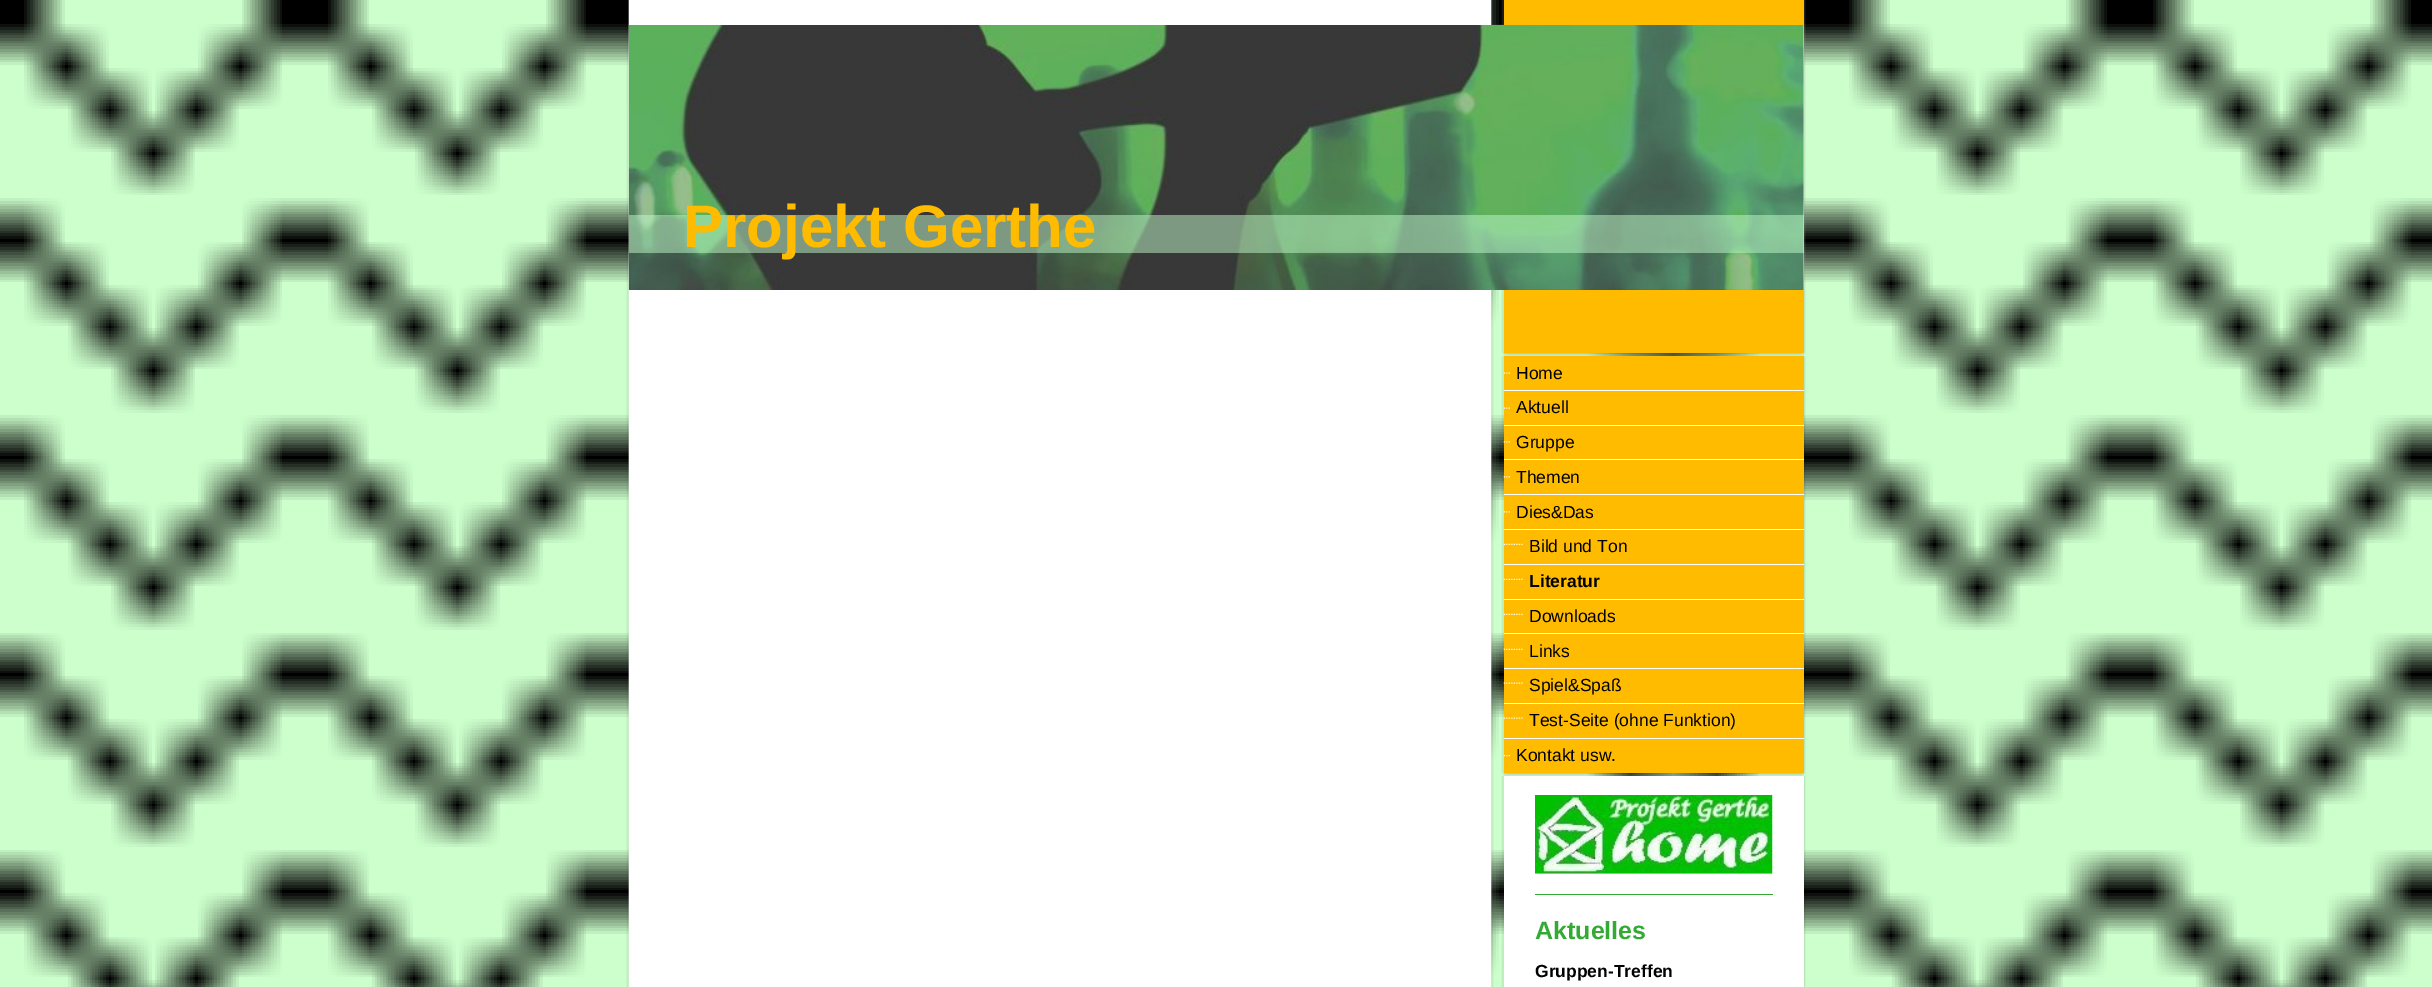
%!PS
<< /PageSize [2432 987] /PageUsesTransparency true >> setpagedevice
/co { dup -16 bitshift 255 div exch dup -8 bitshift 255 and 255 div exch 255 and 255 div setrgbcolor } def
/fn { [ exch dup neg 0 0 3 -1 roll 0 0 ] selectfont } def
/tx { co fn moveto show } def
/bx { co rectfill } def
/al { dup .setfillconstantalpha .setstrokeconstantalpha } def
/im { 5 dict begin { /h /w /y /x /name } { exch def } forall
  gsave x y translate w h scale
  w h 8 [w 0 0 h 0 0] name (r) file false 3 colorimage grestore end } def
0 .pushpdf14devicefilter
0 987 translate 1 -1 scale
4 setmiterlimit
0 0 2432 987 16#CCFFCC bx
(media/1.raw) 0 0 2432 987 im
(media/2.raw) 626 0 868 987 im
(media/3.raw) 1501 0 305 290 im
1504 0 300 25 16#FFBB00 bx
1803 25 1 265 16#EEEEEE bx
(media/4.raw) 628 25 1176 265 im
0.5 al
629 215 1175 38 16#C2FAC9 bx
0.03 al
1512 289 290 1 16#000000 bx
1 al
(media/5.raw) 1502 352 304 4 im
(media/6.raw) 1501 290 305 63 im
1504 290 300 63 16#FFBB00 bx
0.03 al
1504 355 300 1 16#000000 bx
1 al
(media/7.raw) 1502 772 304 4 im
(media/8.raw) 1501 356 305 417 im
1504 356 300 417 16#FFBB00 bx
(media/9.raw) 1503 372 7 2 im
1504 390 300 1 16#FFFFFF bx
(media/9.raw) 1503 407 7 2 im
1504 425 300 1 16#FFFFFF bx
(media/10.raw) 1503 441 7 2 im
1504 459 300 1 16#FFFFFF bx
(media/11.raw) 1503 476 7 2 im
1504 494 300 1 16#FFFFFF bx
(media/12.raw) 1503 511 7 2 im
1504 529 300 1 16#FFFFFF bx
(media/13.raw) 1503 543 20 2 im
1504 564 300 1 16#FFFFFF bx
(media/13.raw) 1503 578 20 2 im
1504 599 300 1 16#FFFFFF bx
(media/13.raw) 1503 613 20 2 im
1504 633 300 1 16#FFFFFF bx
(media/14.raw) 1503 648 20 2 im
1504 668 300 1 16#FFFFFF bx
(media/15.raw) 1503 682 20 2 im
1504 703 300 1 16#FFFFFF bx
(media/16.raw) 1503 717 20 2 im
1504 738 300 1 16#FFFFFF bx
(media/17.raw) 1503 755 7 2 im
0.03 al
1504 775 300 1 16#000000 bx
1 al
(media/18.raw) 1501 776 305 211 im
1504 776 300 211 16#FFFFFF bx
(media/19.raw) 1535 795 238 79 im
1535 894 238 1 16#33AA33 bx
(Projekt Gerthe) 683 247 /LiberationSans-Bold 60 16#FFBB00 tx
(Home) 1516 379 /LiberationSans-Regular 17.5 16#000000 tx
(Aktuell) 1516 413 /LiberationSans-Regular 17.5 16#000000 tx
(Gruppe) 1516 448 /LiberationSans-Regular 17.5 16#000000 tx
(Themen) 1516 483 /LiberationSans-Regular 17.5 16#000000 tx
(Dies&Das) 1516 518 /LiberationSans-Regular 17.5 16#000000 tx
(Bild und Ton) 1529 552 /LiberationSans-Regular 17.5 16#000000 tx
(Literatur) 1529 587 /LiberationSans-Bold 17.5 16#000000 tx
(Downloads) 1529 622 /LiberationSans-Regular 17.5 16#000000 tx
(Links) 1529 657 /LiberationSans-Regular 17.5 16#000000 tx
(Spiel&Spaß) 1529 691 /LiberationSans-Regular 17.5 16#000000 tx
(Test-Seite \(ohne Funktion\)) 1529 726 /LiberationSans-Regular 17.5 16#000000 tx
(Kontakt usw.) 1516 761 /LiberationSans-Regular 17.5 16#000000 tx
(Aktuelles) 1535 939 /LiberationSans-Bold 25 16#33AA33 tx
(Gruppen-Treffen) 1535 977 /LiberationSans-Bold 17.5 16#000000 tx
.poppdf14devicefilter showpage
